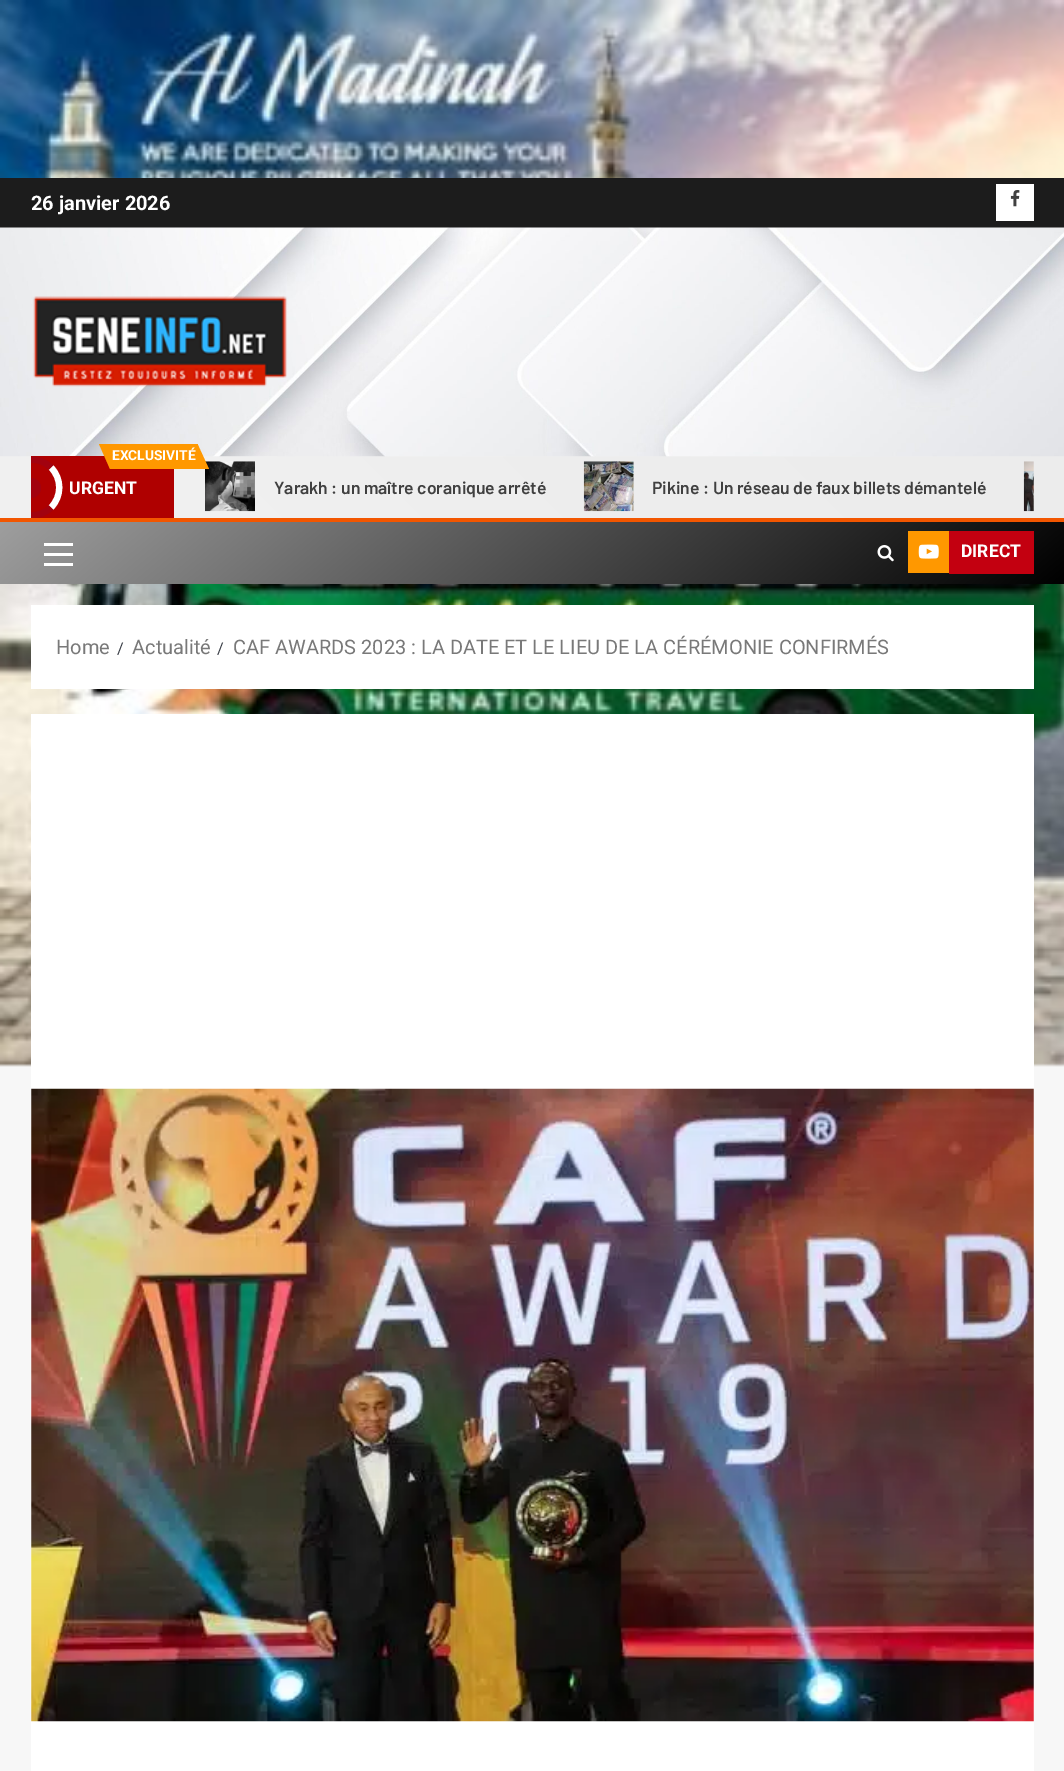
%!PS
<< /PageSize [1064 1771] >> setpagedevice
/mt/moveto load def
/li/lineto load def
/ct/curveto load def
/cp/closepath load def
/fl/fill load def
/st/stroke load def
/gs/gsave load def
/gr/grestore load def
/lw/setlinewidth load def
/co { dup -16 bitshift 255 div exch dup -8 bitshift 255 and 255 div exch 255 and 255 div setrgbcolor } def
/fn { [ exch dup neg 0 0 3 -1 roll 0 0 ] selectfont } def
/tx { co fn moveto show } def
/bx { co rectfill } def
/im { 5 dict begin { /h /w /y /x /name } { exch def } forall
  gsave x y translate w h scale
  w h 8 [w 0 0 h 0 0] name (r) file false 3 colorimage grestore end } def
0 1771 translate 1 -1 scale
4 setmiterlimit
0 0 1064 1771 16#F7F7F7 bx
(media/1.raw) 0 0 1064 1067 im
0 178 1064 50 16#1C1C1C bx
996 184 38 37 16#FFFFFF bx
(media/2.raw) 1010 190 10 17 im
gs 0 456 mt 1064 456 li 1064 518 li 0 518 li cp clip newpath
<< /ShadingType 2 /ColorSpace /DeviceRGB /Coords [251 768 814 205] /Extend [true true] /Function << /FunctionType 2 /Domain [0 1] /C0 [.945 .945 .945] /C1 [.925 .925 .925] /N 1 >> >> shfill gr
(media/3.raw) 0 227 1064 230 im
(media/4.raw) 33 296 254 91 im
31 456 143 62 16#AF0000 bx
110 444 88 25 16#FF9800 bx
99 444 mt 110 444 li 110 469 li cp fl
(media/5.raw) 205 461 50 51 im
209 469 mt 197.5 469 li 197.5 444 li cp fl
16#FFFFFF co
6.2 lw
51 467.5 mt 62 478.5 62 496.5 51 507.5 ct st
gs
31 456 143 62 rectclip
16#A2020F co
11.5 467.5 mt 22 457 40.5 457 51 467.5 ct 51 507.5 mt 40.5 518 22 518 11.5 507.5 ct st
gr
16#A2020F co
31 478 mt 36.5 478 41 482.5 41 488 ct 41 493.5 36.5 498 31 498 ct cp fl
(media/6.raw) 583 461 51 51 im
(media/7.raw) 1023 461 11 51 im
gs 0 522 mt 1064 522 li 1064 584 li 0 584 li cp clip newpath
<< /ShadingType 2 /ColorSpace /DeviceRGB /Coords [297 272 768 833] /Extend [true true] /Function << /FunctionType 2 /Domain [0 1] /C0 [.62 .62 .62] /C1 [0 0 0] /N 1 >> >> shfill gr
0 518 1064 4 16#F25600 bx
44 553 29 3 16#FFFFFF bx
44 543 29 3 16#FFFFFF bx
44 563 29 3 16#FFFFFF bx
(media/8.raw) 877 545 17 17 im
908 531 41 42 16#FF9800 bx
(media/9.raw) 918 544 21 15 im
949 531 85 43 16#C30010 bx
31 605 1003 84 16#FFFFFF bx
31 714 1003 1057 16#FFFFFF bx
(media/10.raw) 31 1088 1003 634 im
(26 janvier 2026) 31 210 /Roboto-Bold 20 16#FFFFFF tx
(EXCLUSIVITÉ) 112 460 /Roboto-Bold 13.75 16#FFFFFF tx
(URGENT) 69 494 /Roboto-Bold 17.5 16#FFFFFF tx
(Yarakh : un maître coranique arrêté) 274 494 /Barlow-SemiBold 17.5 16#404040 tx
(Pikine : Un réseau de faux billets démantelé) 652 494 /Barlow-SemiBold 17.5 16#404040 tx
(DIRECT) 961 557 /Roboto-Bold 17.5 16#FFFFFF tx
(Home) 56 654 /Roboto-Regular 20 16#797979 tx
(/) 117 654 /Roboto-Regular 16 16#393E46 tx
(Actualité) 132 654 /Roboto-Regular 20 16#797979 tx
(/) 217 654 /Roboto-Regular 16 16#393E46 tx
(CAF AWARDS 2023 : LA DATE ET LE LIEU DE LA CÉRÉMONIE CONFIRMÉS) 233 654 /Roboto-Regular 20 16#797979 tx
showpage
